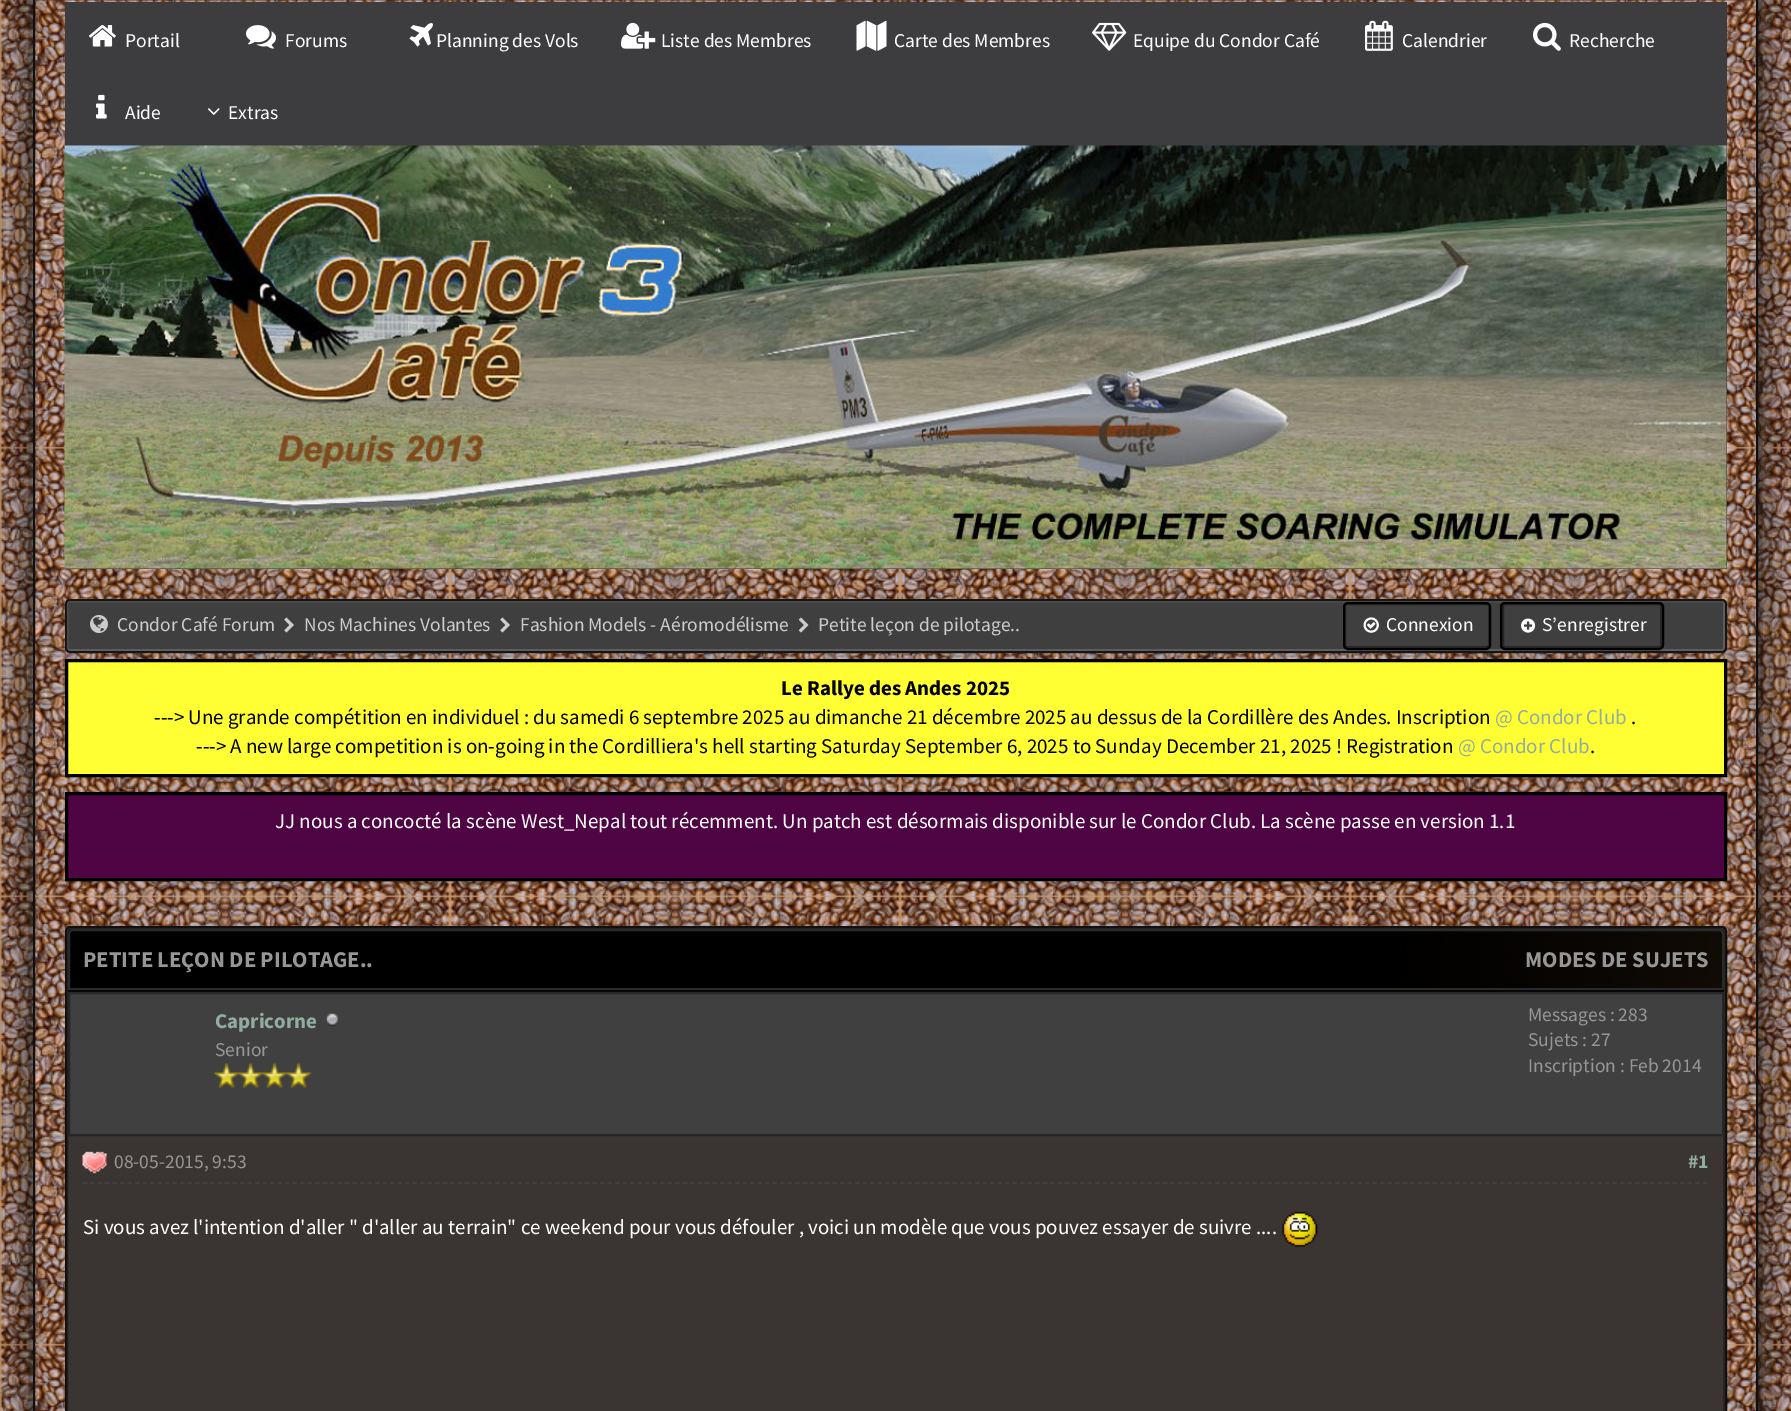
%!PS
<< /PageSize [1791 1411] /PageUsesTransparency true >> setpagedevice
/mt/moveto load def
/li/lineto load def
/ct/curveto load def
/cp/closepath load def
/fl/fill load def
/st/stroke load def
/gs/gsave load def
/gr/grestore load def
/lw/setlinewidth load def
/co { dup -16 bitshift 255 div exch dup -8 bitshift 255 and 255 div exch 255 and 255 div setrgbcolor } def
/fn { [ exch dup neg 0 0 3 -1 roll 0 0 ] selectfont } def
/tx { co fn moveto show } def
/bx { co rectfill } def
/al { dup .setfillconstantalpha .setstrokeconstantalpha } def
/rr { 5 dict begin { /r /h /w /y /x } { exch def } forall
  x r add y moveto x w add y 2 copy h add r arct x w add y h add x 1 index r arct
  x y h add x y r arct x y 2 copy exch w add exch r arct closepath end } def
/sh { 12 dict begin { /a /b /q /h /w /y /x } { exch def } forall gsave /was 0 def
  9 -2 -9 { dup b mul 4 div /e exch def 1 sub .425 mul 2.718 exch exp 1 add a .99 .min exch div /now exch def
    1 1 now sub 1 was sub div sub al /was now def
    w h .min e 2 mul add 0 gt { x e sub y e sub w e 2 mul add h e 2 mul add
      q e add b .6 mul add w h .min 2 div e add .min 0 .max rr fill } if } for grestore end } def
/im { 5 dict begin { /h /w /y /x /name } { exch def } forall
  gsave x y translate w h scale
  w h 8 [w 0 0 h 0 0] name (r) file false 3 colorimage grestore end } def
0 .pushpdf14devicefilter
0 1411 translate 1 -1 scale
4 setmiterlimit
0 0 1791 1411 16#CC9966 bx
(media/1.raw) 0 0 1791 1411 im
gs
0 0 mt 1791 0 li 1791 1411 li 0 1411 li cp 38 -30 mt 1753 -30 li 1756 -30 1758 -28 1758 -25 ct 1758 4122 li 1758 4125 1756 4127 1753 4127 ct 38 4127 li 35 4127 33 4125 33 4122 ct 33 -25 li 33 -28 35 -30 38 -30 ct cp eoclip newpath
16#0D0D0D co
33 -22 1725 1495 5 19 1 sh
gr
16#101010 co
2 lw
34 -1 1723 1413 rectstroke
65 2 1662 144 16#3D3D40 bx
(media/2.raw) 89 25 27 22 im
(media/3.raw) 246 25 30 24 im
(media/4.raw) 409 23 24 24 im
(media/5.raw) 621 22 35 27 im
(media/6.raw) 856 20 31 31 im
(media/7.raw) 1092 22 35 29 im
(media/8.raw) 1365 20 28 31 im
(media/9.raw) 1533 22 28 29 im
(media/10.raw) 96 94 11 25 im
(media/11.raw) 208 108 12 7 im
66 600 1659 51 16#3F3F3F bx
16#5D5D5D co
67 601 1657 49 2 rr st
16#161616 co
66 600 1660 52 4 rr st
(media/12.raw) 90 615 18 18 im
(media/13.raw) 284 617 10 16 im
(media/13.raw) 500 617 10 16 im
(media/14.raw) 798 617 11 16 im
65 146 1662 423 16#393B47 bx
(media/15.raw) 64 145 1663 424 im
16#262626 co
1345 604 144 43 2 rr st
16#000000 co
1344 603 146 46 4 rr st
(media/16.raw) 1363 617 16 16 im
16#262626 co
1503 604 158 43 2 rr st
16#000000 co
1501 603 162 46 4 rr st
(media/17.raw) 1521 618 15 15 im
16#FFFF33 co
66.5 660.5 mt 1725.5 660.5 li 1725.5 775.5 li 66.5 775.5 li cp gs fl gr
16#000000 co
3 lw
st
16#4F0444 co
66.5 793.5 mt 1725.5 793.5 li 1725.5 879.5 li 66.5 879.5 li cp gs fl gr
16#000000 co
st
16#3A3433 co
67 928 1657 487 2 rr gs fl gr
16#262626 co
2 lw
st
16#101010 co
66 927 1660 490 4 rr st
(media/18.raw) 67 928 1656 62 im
16#2A2A2A co
73 930 mt 1719 930 li 1721 930 1723 932 1723 934 ct 1723 989 li 69 989 li 69 934 li 69 932 71 930 73 930 ct cp st
68 990 1656 2 16#070707 bx
16#404040 co
69 993 mt 1723 993 li 1723 1135 li 69 1135 li cp gs fl gr
16#262626 co
st
(media/19.raw) 326 1013 12 14 im
(media/20.raw) 214 1063 25 25 im
(media/21.raw) 238 1063 25 25 im
(media/22.raw) 262 1063 25 25 im
(media/23.raw) 286 1063 25 25 im
16#414040 co
1.5 lw
[4.5 3] 0 setdash
82.5 1183 mt 1708.5 1183 li st
(media/24.raw) 82 1151 25 23 im
(media/25.raw) 1282 1211 36 36 im
(Portail) 125 47 /SourceSansPro-Regular 19.5 16#FFFFFF tx
(Forums) 285 47 /SourceSansPro-Regular 19.5 16#FFFFFF tx
(Planning des Vols) 436 47 /SourceSansPro-Regular 19.5 16#FFFFFF tx
(Liste des Membres) 661 47 /SourceSansPro-Regular 19.5 16#FFFFFF tx
(Carte des Membres) 894 47 /SourceSansPro-Regular 19.5 16#FFFFFF tx
(Equipe du Condor Café) 1133 47 /SourceSansPro-Regular 19.5 16#FFFFFF tx
(Calendrier) 1402 47 /SourceSansPro-Regular 19.5 16#FFFFFF tx
(Recherche) 1569 47 /SourceSansPro-Regular 19.5 16#FFFFFF tx
(Aide) 125 119 /SourceSansPro-Regular 19.5 16#FFFFFF tx
(Extras) 228 119 /SourceSansPro-Regular 19.5 16#FFFFFF tx
(Condor Café Forum) 117 631 /SourceSansPro-Regular 19.5 16#CCCCCC tx
(Nos Machines Volantes) 304 631 /SourceSansPro-Regular 19.5 16#CCCCCC tx
(Fashion Models - Aéromodélisme) 520 631 /SourceSansPro-Regular 19.5 16#CCCCCC tx
(Petite leçon de pilotage..) 818 631 /SourceSansPro-Regular 19.5 16#CCCCCC tx
(Connexion) 1386 631 /SourceSansPro-Regular 19.5 16#FFFFFF tx
(S’enregistrer) 1542 631 /SourceSansPro-Regular 19.5 16#FFFFFF tx
(Le Rallye des Andes 2025) 781 695 /SourceSansPro-Bold 21 16#000000 tx
(---> Une grande compétition en individuel : du samedi 6 septembre 2025 au dimanche 21 décembre 2025 au dessus de la Cordillère des Andes. Inscription) 154 724 /SourceSansPro-Regular 21 16#000000 tx
(@ Condor Club) 1495 724 /SourceSansPro-Regular 21 16#91AD9F tx
(.) 1631 724 /SourceSansPro-Regular 21 16#000000 tx
(---> A new large competition is on-going in the Cordilliera's hell starting Saturday September 6, 2025 to Sunday December 21, 2025 ! Registration) 196 753 /SourceSansPro-Regular 21 16#000000 tx
(@ Condor Club) 1458 753 /SourceSansPro-Regular 21 16#91AD9F tx
(.) 1590 753 /SourceSansPro-Regular 21 16#000000 tx
(JJ nous a concocté la scène West_Nepal tout récemment. Un patch est désormais disponible sur le Condor Club. La scène passe en version 1.1) 275 828 /SourceSansPro-Regular 21 16#FFFFFF tx
(PETITE LEÇON DE PILOTAGE..) 83 967 /SourceSansPro-Bold 22.5 16#969696 tx
(MODES DE SUJETS) 1525 967 /SourceSansPro-Bold 22.5 16#969696 tx
(Capricorne) 215 1028 /SourceSansPro-Bold 21 16#91AD9F tx
(Senior) 215 1056 /SourceSansPro-Regular 19.5 16#969696 tx
(Messages : 283) 1528 1021 /SourceSansPro-Regular 19.5 16#969696 tx
(Sujets : 27) 1528 1046 /SourceSansPro-Regular 19.5 16#969696 tx
(Inscription : Feb 2014) 1528 1072 /SourceSansPro-Regular 19.5 16#969696 tx
(08-05-2015, 9:53) 114 1168 /SourceSansPro-Regular 19.5 16#969696 tx
(#1) 1688 1168 /SourceSansPro-Bold 19.5 16#91AD9F tx
(Si vous avez l'intention d'aller " d'aller au terrain" ce weekend pour vous défouler , voici un modèle que vous pouvez essayer de suivre ....) 83 1234 /SourceSansPro-Regular 21 16#FFFFFF tx
.poppdf14devicefilter showpage
